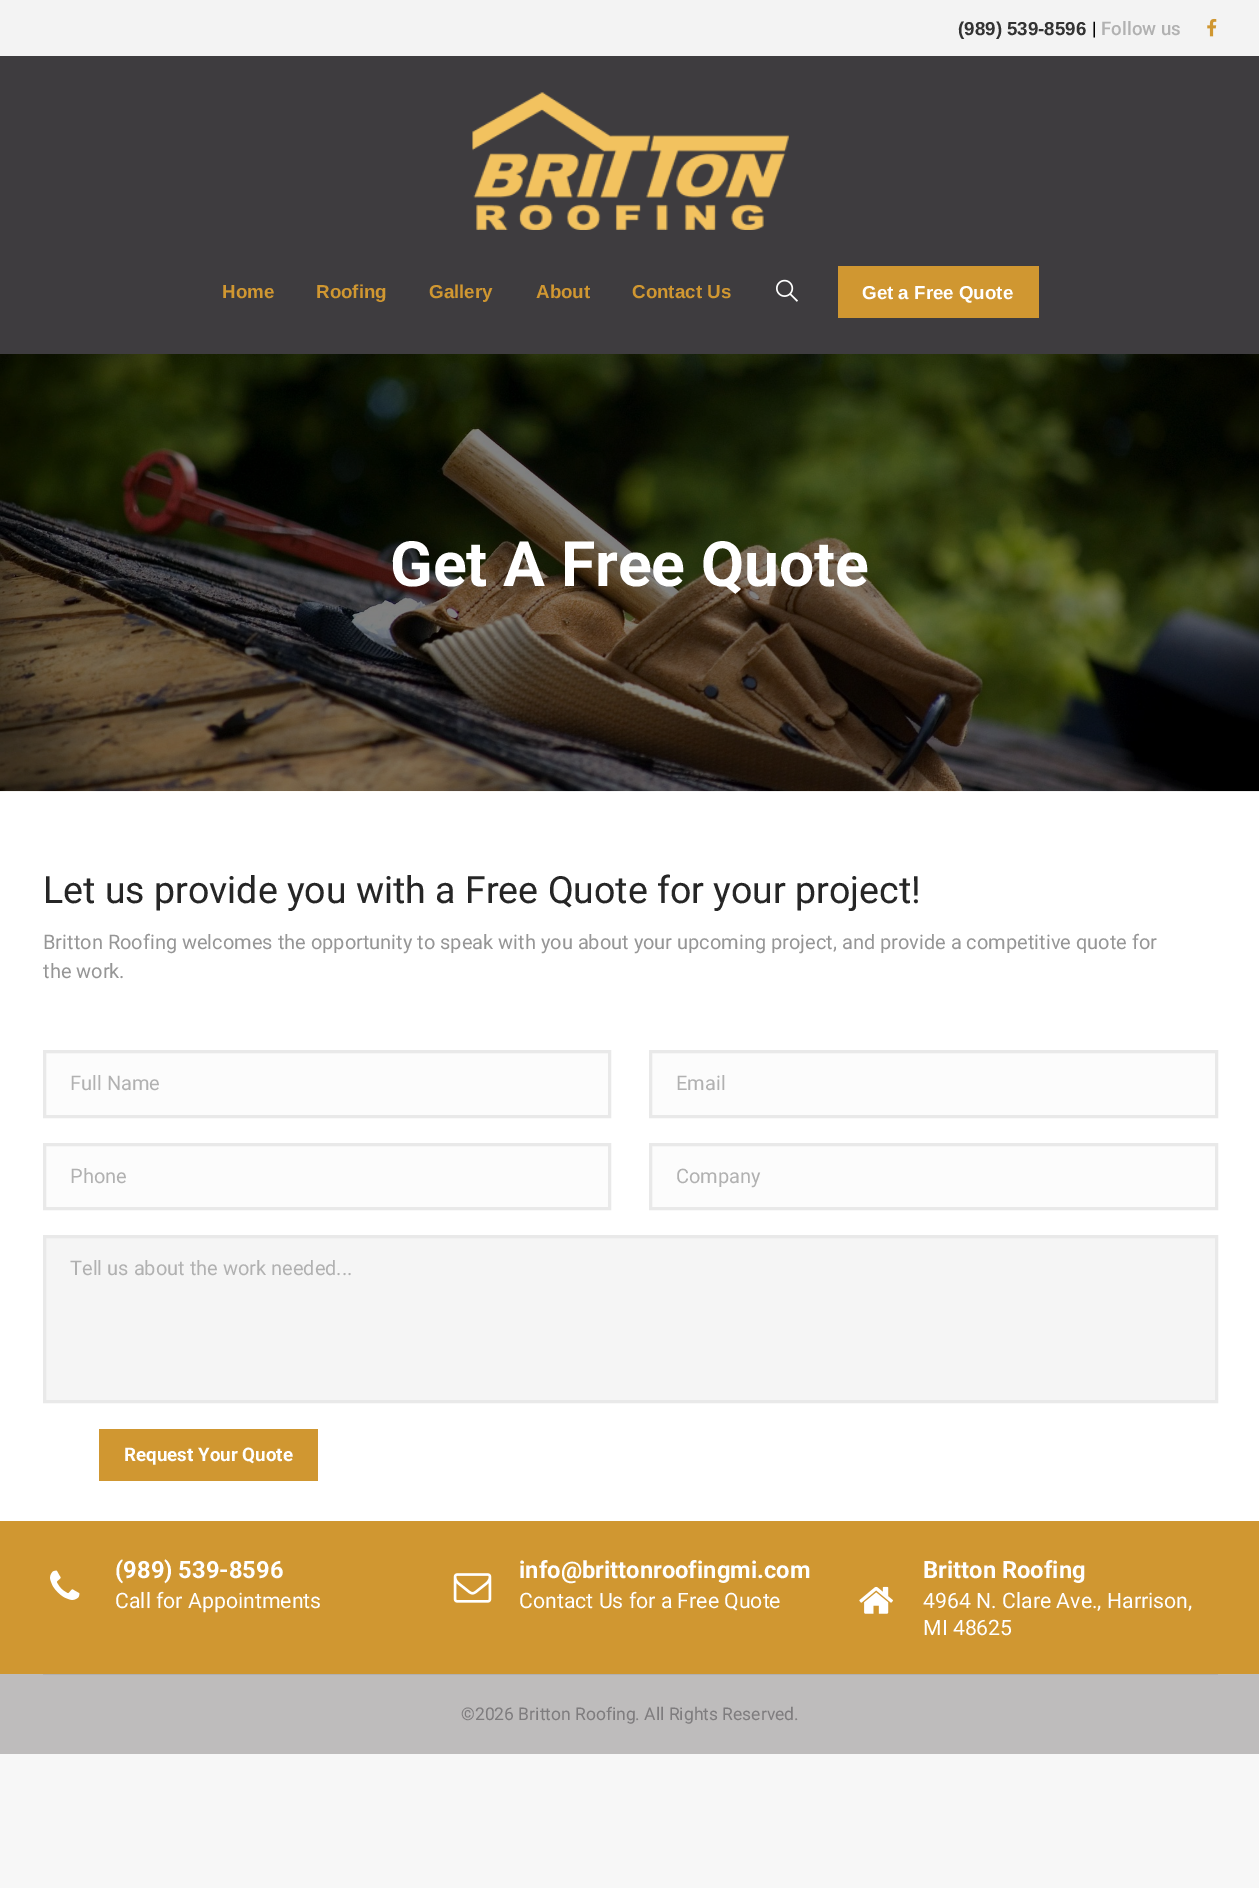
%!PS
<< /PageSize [1259 1888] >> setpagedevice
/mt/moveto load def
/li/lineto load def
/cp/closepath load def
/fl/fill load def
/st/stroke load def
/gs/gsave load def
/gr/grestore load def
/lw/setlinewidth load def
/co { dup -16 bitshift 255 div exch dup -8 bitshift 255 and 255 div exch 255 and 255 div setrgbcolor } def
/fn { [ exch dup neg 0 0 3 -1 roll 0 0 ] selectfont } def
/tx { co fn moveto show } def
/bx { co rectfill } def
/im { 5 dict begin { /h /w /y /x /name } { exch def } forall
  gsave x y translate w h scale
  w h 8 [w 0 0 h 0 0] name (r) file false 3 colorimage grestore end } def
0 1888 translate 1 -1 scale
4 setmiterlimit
0 0 1259 1888 16#F7F7F7 bx
0 791 1259 730 16#FFFFFF bx
0 0 1259 56 16#F3F3F3 bx
(media/1.raw) 1207 18 10 19 im
0 56 1259 298 16#3E3C3F bx
(media/2.raw) 472 92 317 138 im
(media/3.raw) 776 279 22 23 im
838 266 201 52 16#D09731 bx
(media/4.raw) 0 354 1259 438 im
16#FCFCFC co
44.5 1051.5 mt 609.5 1051.5 li 609.5 1116.5 li 44.5 1116.5 li cp gs fl gr
16#E9E9E9 co
3 lw
st
16#FCFCFC co
650.5 1051.5 mt 1216.5 1051.5 li 1216.5 1116.5 li 650.5 1116.5 li cp gs fl gr
16#E9E9E9 co
st
16#FCFCFC co
44.5 1144.5 mt 609.5 1144.5 li 609.5 1208.5 li 44.5 1208.5 li cp gs fl gr
16#E9E9E9 co
st
16#FCFCFC co
650.5 1144.5 mt 1216.5 1144.5 li 1216.5 1208.5 li 650.5 1208.5 li cp gs fl gr
16#E9E9E9 co
st
16#F5F5F5 co
44.5 1236.5 mt 1216.5 1236.5 li 1216.5 1401.5 li 44.5 1401.5 li cp gs fl gr
16#E9E9E9 co
st
99 1429 219 52 16#D09731 bx
0 1521 1259 153 16#D09731 bx
(media/5.raw) 50 1570 30 30 im
(media/6.raw) 453 1573 39 30 im
(media/7.raw) 859 1586 34 28 im
0 1674 1259 80 16#BEBCBC bx
43 1674 1175 1 16#B1AFB0 bx
(\(989\) 539-8596) 958 35 /LiberationSans-Bold 18.75 16#333333 tx
(|) 1092 35 /Roboto-Medium 18.75 16#000000 tx
(Follow us) 1101 35 /Roboto-Medium 18.75 16#B1B1B1 tx
(Home) 222 298 /LiberationSans-Bold 18.75 16#D09731 tx
(Roofing) 316 298 /LiberationSans-Bold 18.75 16#D09731 tx
(Gallery) 429 298 /LiberationSans-Bold 18.75 16#D09731 tx
(About) 536 298 /LiberationSans-Bold 18.75 16#D09731 tx
(Contact Us) 632 298 /LiberationSans-Bold 18.75 16#D09731 tx
(Get a Free Quote) 862 299 /LiberationSans-Bold 18.75 16#FFFFFF tx
(Get A Free Quote) 390 586 /Roboto-Bold 62.5 16#FFFFFF tx
(Let us provide you with a Free Quote for your project!) 43 903 /Roboto-Regular 37.5 16#262626 tx
(Britton Roofing welcomes the opportunity to speak with you about your upcoming project, and provide a competitive quote for) 43 949 /Roboto-Regular 20 16#969696 tx
(the work.) 43 978 /Roboto-Regular 20 16#969696 tx
(Full Name) 70 1090 /Roboto-Regular 20 16#B1B1B1 tx
(Email) 676 1090 /Roboto-Regular 20 16#B1B1B1 tx
(Phone) 70 1183 /Roboto-Regular 20 16#B1B1B1 tx
(Company) 676 1183 /Roboto-Regular 20 16#B1B1B1 tx
(Tell us about the work needed...) 70 1275 /Roboto-Regular 20 16#B1B1B1 tx
(Request Your Quote) 124 1461 /Roboto-Bold 18.75 16#FFFFFF tx
(\(989\) 539-8596) 115 1578 /Roboto-Bold 23.75 16#FFFFFF tx
(Call for Appointments) 115 1608 /Roboto-Regular 21.25 16#FFFFFF tx
(info@brittonroofingmi.com) 519 1578 /Roboto-Bold 23.75 16#FFFFFF tx
(Contact Us for a Free Quote) 519 1608 /Roboto-Regular 21.25 16#FFFFFF tx
(Britton Roofing) 923 1578 /Roboto-Bold 23.75 16#FFFFFF tx
(4964 N. Clare Ave., Harrison,) 923 1608 /Roboto-Regular 21.25 16#FFFFFF tx
(MI 48625) 923 1635 /Roboto-Regular 21.25 16#FFFFFF tx
(©2026 Britton Roofing. All Rights Reserved.) 461 1720 /Roboto-Regular 17.5 16#7E7C7E tx
showpage
